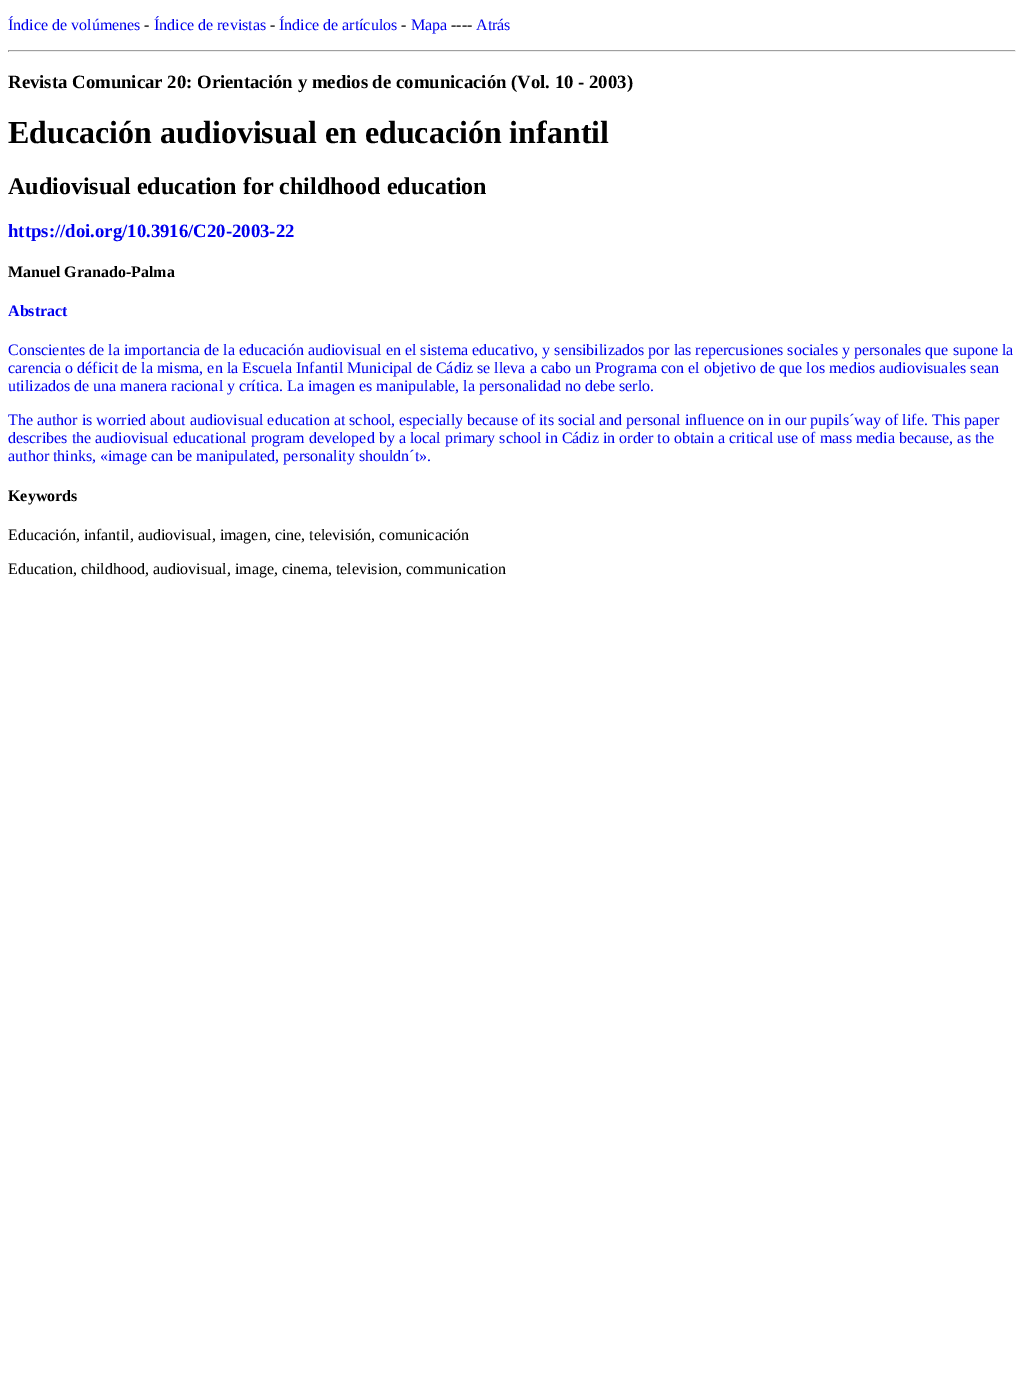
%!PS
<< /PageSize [1024 1385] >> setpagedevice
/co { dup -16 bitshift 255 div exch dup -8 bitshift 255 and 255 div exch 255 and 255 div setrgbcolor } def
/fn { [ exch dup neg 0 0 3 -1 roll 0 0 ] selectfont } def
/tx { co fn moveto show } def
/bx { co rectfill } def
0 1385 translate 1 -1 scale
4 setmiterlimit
0 0 1024 1385 16#FFFFFF bx
8 50 1008 1 16#9F9F9F bx
1015 50 1 2 16#EEEEEE bx
8 51 1008 1 16#EEEEEE bx
8 50 1 2 16#9F9F9F bx
(Índice de volúmenes) 8 30 /LiberationSerif-Regular 16 16#0000EE tx
(-) 144 30 /LiberationSerif-Regular 16 16#000000 tx
(Índice de revistas) 154 30 /LiberationSerif-Regular 16 16#0000EE tx
(-) 270 30 /LiberationSerif-Regular 16 16#000000 tx
(Índice de artículos) 279 30 /LiberationSerif-Regular 16 16#0000EE tx
(-) 401 30 /LiberationSerif-Regular 16 16#000000 tx
(Mapa) 411 30 /LiberationSerif-Regular 16 16#0000EE tx
(----) 451 30 /LiberationSerif-Regular 16 16#000000 tx
(Atrás) 476 30 /LiberationSerif-Regular 16 16#0000EE tx
(Revista Comunicar 20: Orientación y medios de comunicación \(Vol. 10 - 2003\)) 8 88 /LiberationSerif-Bold 18.75 16#000000 tx
(Educación audiovisual en educación infantil) 8 143 /LiberationSerif-Bold 32 16#000000 tx
(Audiovisual education for childhood education) 8 194 /LiberationSerif-Bold 24 16#000000 tx
(https://doi.org/10.3916/C20-2003-22) 8 237 /LiberationSerif-Bold 18.75 16#0000EE tx
(Manuel Granado-Palma) 8 277 /LiberationSerif-Bold 16 16#000000 tx
(Abstract) 8 316 /LiberationSerif-Bold 16 16#0000EE tx
(Conscientes de la importancia de la educación audiovisual en el sistema educativo, y sensibilizados por las repercusiones sociales y personales que supone la) 8 355 /LiberationSerif-Regular 16 16#0000EE tx
(carencia o déficit de la misma, en la Escuela Infantil Municipal de Cádiz se lleva a cabo un Programa con el objetivo de que los medios audiovisuales sean) 8 373 /LiberationSerif-Regular 16 16#0000EE tx
(utilizados de una manera racional y crítica. La imagen es manipulable, la personalidad no debe serlo.) 8 391 /LiberationSerif-Regular 16 16#0000EE tx
(The author is worried about audiovisual education at school, especially because of its social and personal influence on in our pupils´way of life. This paper) 8 425 /LiberationSerif-Regular 16 16#0000EE tx
(describes the audiovisual educational program developed by a local primary school in Cádiz in order to obtain a critical use of mass media because, as the) 8 443 /LiberationSerif-Regular 16 16#0000EE tx
(author thinks, «image can be manipulated, personality shouldn´t».) 8 461 /LiberationSerif-Regular 16 16#0000EE tx
(Keywords) 8 501 /LiberationSerif-Bold 16 16#000000 tx
(Educación, infantil, audiovisual, imagen, cine, televisión, comunicación) 8 540 /LiberationSerif-Regular 16 16#000000 tx
(Education, childhood, audiovisual, image, cinema, television, communication) 8 574 /LiberationSerif-Regular 16 16#000000 tx
showpage
